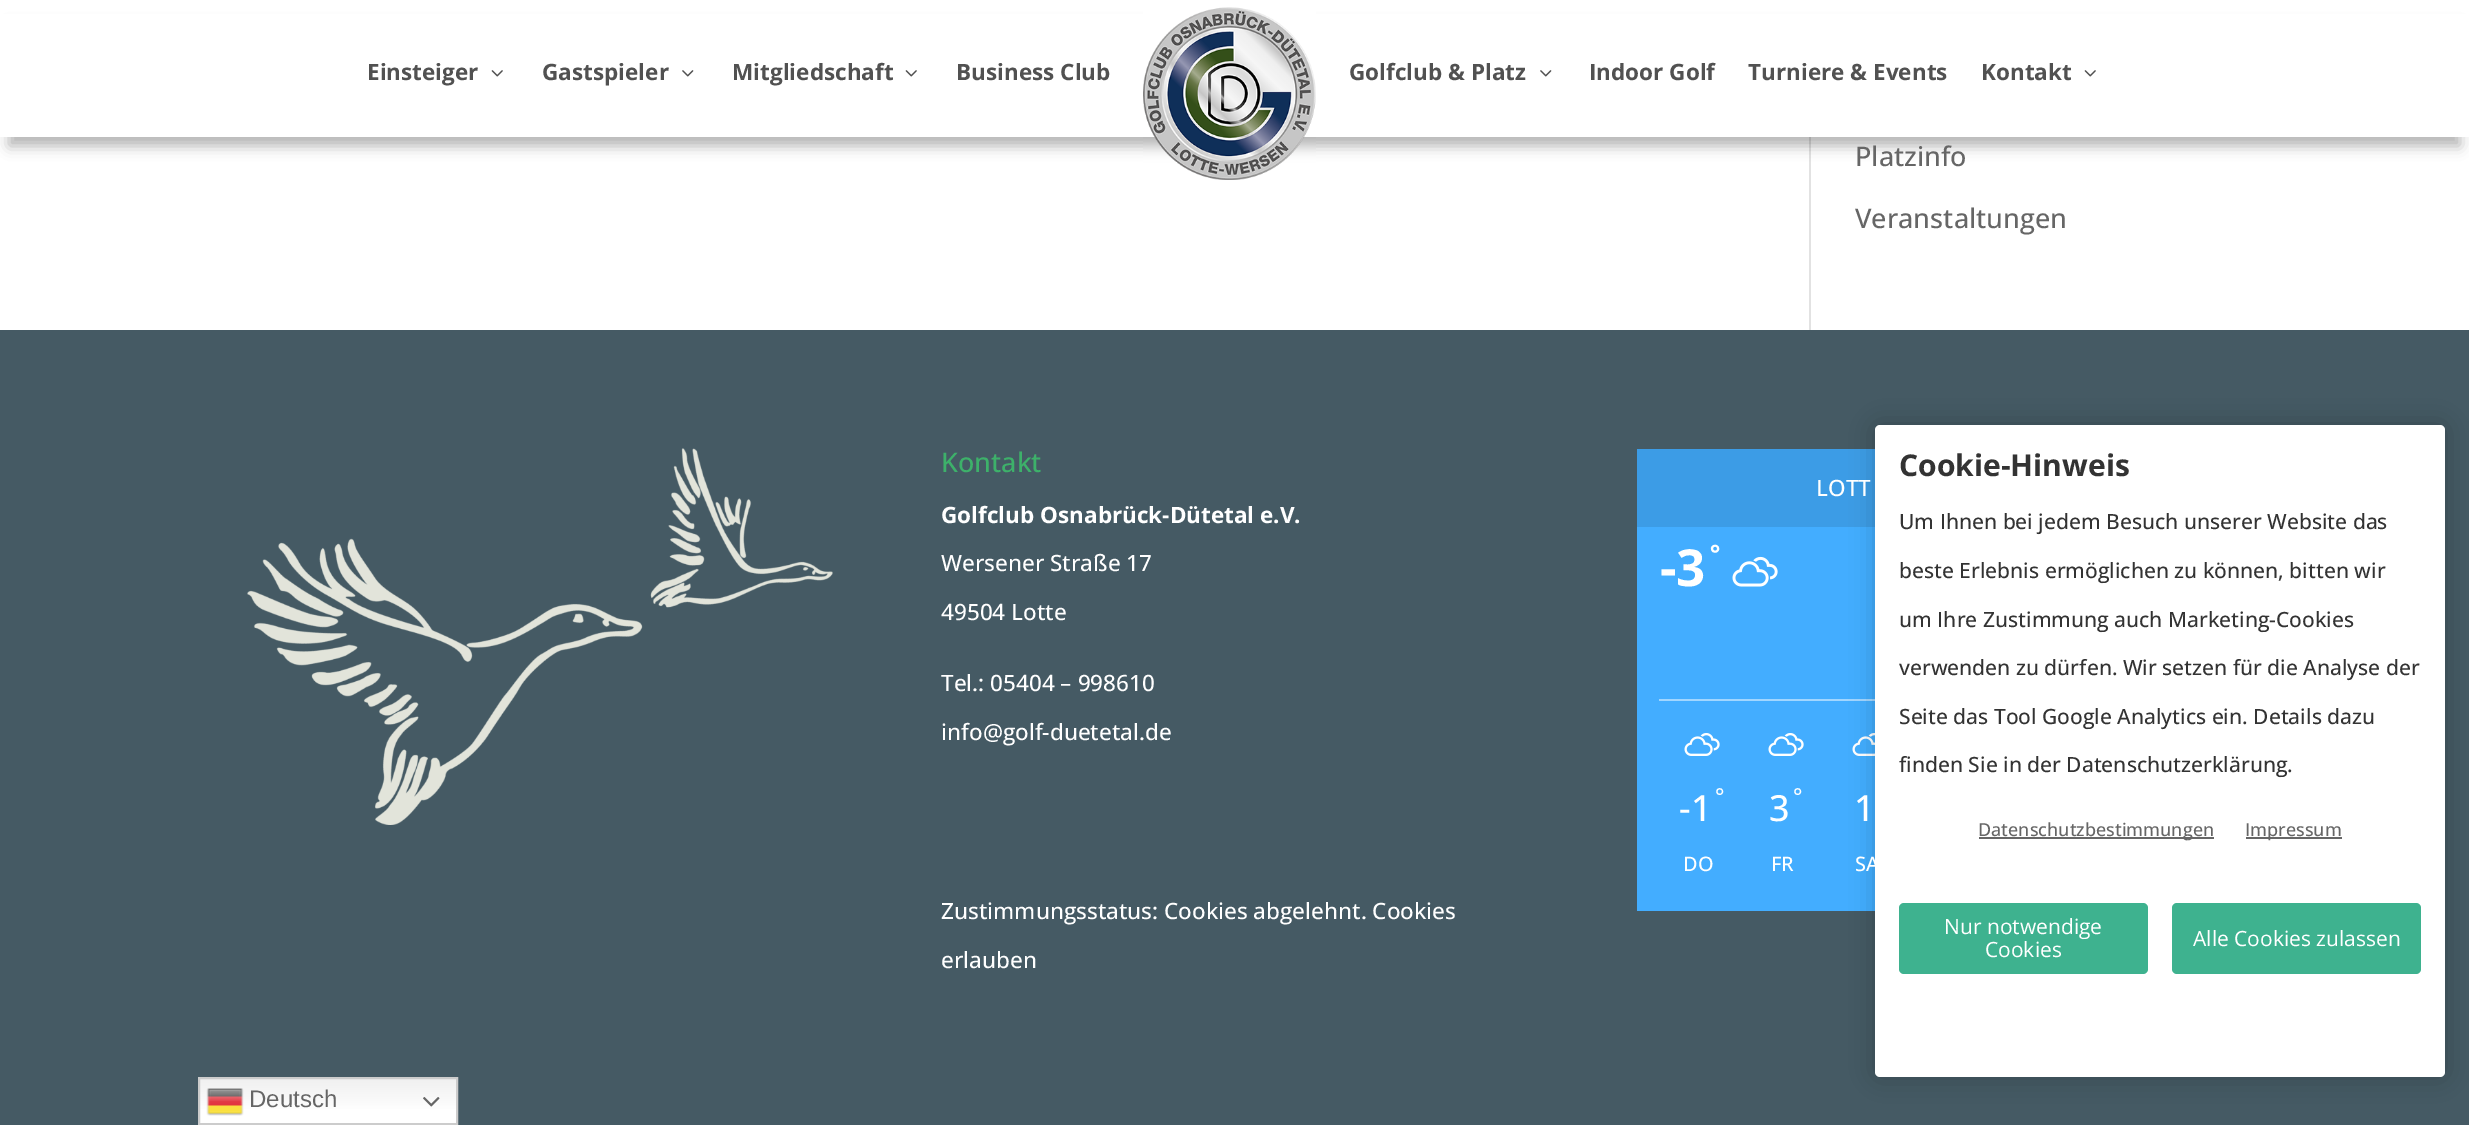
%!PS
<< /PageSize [2469 1125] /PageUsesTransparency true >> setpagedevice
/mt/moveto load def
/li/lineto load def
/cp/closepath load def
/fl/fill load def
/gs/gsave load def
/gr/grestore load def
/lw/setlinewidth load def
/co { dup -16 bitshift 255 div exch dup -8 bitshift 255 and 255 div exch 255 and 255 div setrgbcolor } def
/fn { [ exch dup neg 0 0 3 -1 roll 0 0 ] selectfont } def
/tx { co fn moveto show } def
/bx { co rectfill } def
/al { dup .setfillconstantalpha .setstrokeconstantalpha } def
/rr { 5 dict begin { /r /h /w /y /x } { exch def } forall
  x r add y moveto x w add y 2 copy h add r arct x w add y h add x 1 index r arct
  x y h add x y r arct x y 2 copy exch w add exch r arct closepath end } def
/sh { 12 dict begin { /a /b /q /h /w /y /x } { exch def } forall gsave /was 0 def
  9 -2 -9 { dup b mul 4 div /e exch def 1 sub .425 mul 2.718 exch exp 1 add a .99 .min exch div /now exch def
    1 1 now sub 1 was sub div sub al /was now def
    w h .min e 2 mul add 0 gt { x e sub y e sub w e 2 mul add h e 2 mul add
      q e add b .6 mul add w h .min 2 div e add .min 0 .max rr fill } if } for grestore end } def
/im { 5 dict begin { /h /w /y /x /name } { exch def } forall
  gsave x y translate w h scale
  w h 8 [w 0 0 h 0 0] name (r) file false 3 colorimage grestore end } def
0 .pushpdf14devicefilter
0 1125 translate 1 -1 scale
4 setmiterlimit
0 0 2469 1125 16#FFFFFF bx
1809 137 2 193 16#E2E2E2 bx
16#000000 co
9 27 2451 119 0 7 .3 sh
0 14 2469 123 16#FFFFFF bx
(media/1.raw) 491 70 12 7 im
(media/2.raw) 682 70 12 7 im
(media/1.raw) 905 70 12 7 im
(media/3.raw) 1143 7 173 173 im
(media/2.raw) 1540 70 12 7 im
(media/1.raw) 2084 70 12 7 im
0 330 2469 795 16#455A64 bx
(media/4.raw) 247 448 586 377 im
1637 527 238 384 16#43ADFF bx
1637 449 238 78 16#3C9CE6 bx
(media/5.raw) 1732 556 46 31 im
1659 699 216 2 16#A1D6FF bx
(media/6.raw) 1684 733 36 23 im
(media/6.raw) 1768 733 36 23 im
(media/7.raw) 1852 733 23 23 im
16#000000 co
1875 425 570 652 5 12 .2 sh
16#FFFFFF co
1875 425 570 652 5 rr fl
1979 837 235 2 16#666666 bx
2246 837 96 2 16#666666 bx
16#3EB28F co
1899 903 249 71 5 rr fl
2172 903 249 71 5 rr fl
gs 200 1079 mt 456 1079 li 456 1123 li 200 1123 li cp clip newpath
<< /ShadingType 2 /ColorSpace /DeviceRGB /Coords [328 1077 328 1125] /Extend [true true] /Function << /FunctionType 3 /Domain [0 1] /Functions [<< /FunctionType 2 /Domain [0 1] /C0 [.937 .937 .937] /C1 [1 1 1] /N 1 >> << /FunctionType 2 /Domain [0 1] /C0 [1 1 1] /C1 [1 1 1] /N 1 >>] /Bounds [.7] /Encode [0 1 0 1] >> >> shfill gr
16#CCCCCC co
2 lw
199 1078 258 46 rectstroke
(media/8.raw) 206 1088 38 28 im
(media/9.raw) 423 1097 17 10 im
(Einsteiger) 367 80 /OpenSans-Bold 22.5 16#515151 tx
(Gastspieler) 542 80 /OpenSans-Bold 22.5 16#515151 tx
(Mitgliedschaft) 732 80 /OpenSans-Bold 22.5 16#515151 tx
(Business Club) 956 80 /OpenSans-Bold 22.5 16#515151 tx
(Golfclub & Platz) 1349 80 /OpenSans-Bold 22.5 16#515151 tx
(Indoor Golf) 1589 80 /OpenSans-Bold 22.5 16#515151 tx
(Turniere & Events) 1748 80 /OpenSans-Bold 22.5 16#515151 tx
(Kontakt) 1981 80 /OpenSans-Bold 22.5 16#515151 tx
(Platzinfo) 1855 166 /OpenSans-Medium 27 16#666666 tx
(Veranstaltungen) 1855 228 /OpenSans-Medium 27 16#666666 tx
(Kontakt) 941 472 /OpenSans-Medium 27 16#3DB16A tx
(Golfclub Osnabrück-Dütetal e.V.) 941 523 /OpenSans-Bold 22.5 16#FFFFFF tx
(Wersener Straße 17) 941 571 /OpenSans-Medium 22.5 16#FFFFFF tx
(49504 Lotte) 941 620 /OpenSans-Medium 22.5 16#FFFFFF tx
(Tel.: 05404 – 998610) 941 691 /OpenSans-Medium 22.5 16#FFFFFF tx
(info@golf-duetetal.de) 941 740 /OpenSans-Medium 22.5 16#FFFFFF tx
(Zustimmungsstatus: Cookies abgelehnt. Cookies) 941 919 /OpenSans-Medium 22.5 16#FFFFFF tx
(erlauben) 941 968 /OpenSans-Medium 22.5 16#FFFFFF tx
(LOTT) 1816 496 /OpenSans-Medium 22.5 16#FFFFFF tx
(-3) 1660 586 /OpenSans-Bold 51 16#FFFFFF tx
(°) 1710 562 /OpenSans-Bold 24 16#FFFFFF tx
(°) 1715 804 /OpenSans-Medium 22 16#FFFFFF tx
(-1) 1679 821 /OpenSans-Medium 36 16#FFFFFF tx
(DO) 1683 871 /OpenSans-Medium 20 16#FFFFFF tx
(°) 1793 804 /OpenSans-Medium 22 16#FFFFFF tx
(3) 1769 821 /OpenSans-Medium 36 16#FFFFFF tx
(FR) 1771 871 /OpenSans-Medium 20 16#FFFFFF tx
(1) 1854 821 /OpenSans-Medium 36 16#FFFFFF tx
(SA) 1855 871 /OpenSans-Medium 20 16#FFFFFF tx
(Cookie-Hinweis) 1899 476 /OpenSans-Bold 30 16#333333 tx
(Um Ihnen bei jedem Besuch unserer Website das) 1899 529 /OpenSans-Medium 21 16#333333 tx
(beste Erlebnis ermöglichen zu können, bitten wir) 1899 578 /OpenSans-Medium 21 16#333333 tx
(um Ihre Zustimmung auch Marketing-Cookies) 1899 627 /OpenSans-Medium 21 16#333333 tx
(verwenden zu dürfen. Wir setzen für die Analyse der) 1899 675 /OpenSans-Medium 21 16#333333 tx
(Seite das Tool Google Analytics ein. Details dazu) 1899 724 /OpenSans-Medium 21 16#333333 tx
(finden Sie in der Datenschutzerklärung.) 1899 772 /OpenSans-Medium 21 16#333333 tx
(Datenschutzbestimmungen) 1978 836 /OpenSans-Medium 18 16#666666 tx
(Impressum) 2245 836 /OpenSans-Medium 18 16#666666 tx
(Nur notwendige) 1944 934 /OpenSans-Regular 21 16#FFFFFF tx
(Cookies) 1985 957 /OpenSans-Regular 21 16#FFFFFF tx
(Alle Cookies zulassen) 2193 946 /OpenSans-Regular 21 16#FFFFFF tx
(Deutsch) 249 1107 /LiberationSans-Regular 24 16#666666 tx
.poppdf14devicefilter showpage
